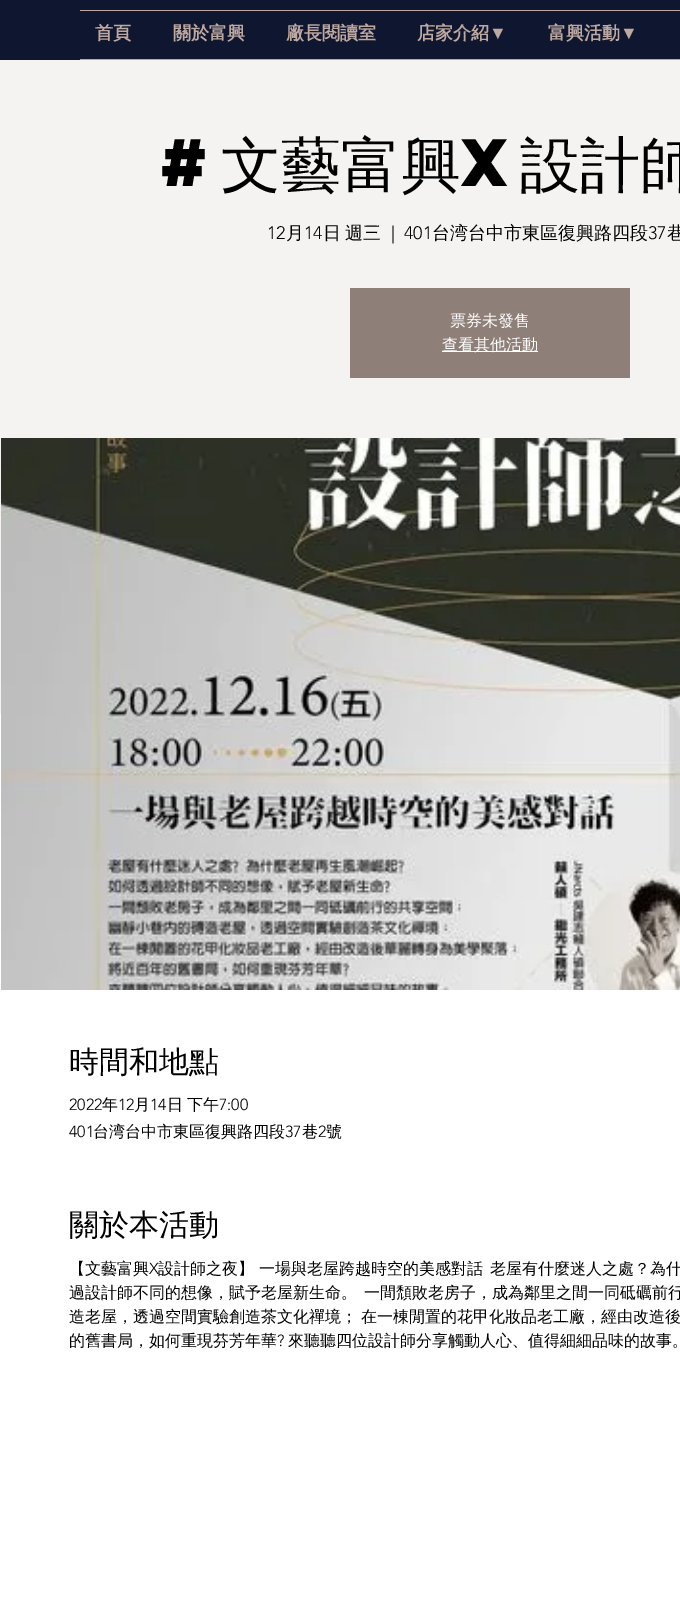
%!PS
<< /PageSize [680 1621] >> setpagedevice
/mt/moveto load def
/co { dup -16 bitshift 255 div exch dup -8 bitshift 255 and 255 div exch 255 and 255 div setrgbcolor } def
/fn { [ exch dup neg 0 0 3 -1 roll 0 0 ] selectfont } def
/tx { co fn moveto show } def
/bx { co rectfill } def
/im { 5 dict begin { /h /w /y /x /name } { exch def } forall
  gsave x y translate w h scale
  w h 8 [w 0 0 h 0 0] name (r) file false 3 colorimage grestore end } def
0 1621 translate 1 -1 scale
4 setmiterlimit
0 0 680 1621 16#FFFFFF bx
0 0 680 60 16#0F162F bx
80 10 600 1 16#BEA9A1 bx
80 59 600 1 16#BEA9A1 bx
0 60 680 654 16#F5F3F2 bx
350 288 280 90 16#8F7F79 bx
442 351 96 1 16#FFFFFF bx
(media/1.raw) 1 438 679 552 im
(首頁) 95 39 /WenQuanYiZenHei-Bold 18 16#BEA9A1 tx
(關於富興) 173 39 /WenQuanYiZenHei-Bold 18 16#BEA9A1 tx
(廠長閱讀室) 286 39 /WenQuanYiZenHei-Bold 18 16#BEA9A1 tx
(店家介紹) 417 39 /WenQuanYiZenHei-Bold 18 16#BEA9A1 tx
(▼) 489 39 /LiberationSerif-Bold 18 16#BEA9A1 tx
(富興活動) 548 39 /WenQuanYiZenHei-Bold 18 16#BEA9A1 tx
(▼) 620 39 /LiberationSerif-Bold 18 16#BEA9A1 tx
(#) 160 186 /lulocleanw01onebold-Bold 60 16#000000 tx
(文藝富興) 221 186 /WenQuanYiZenHei-Medium 60 16#000000 tx
(X) 461 186 /lulocleanw01onebold-Bold 60 16#000000 tx
(設計師) 520 186 /WenQuanYiZenHei-Medium 60 16#000000 tx
(12) 267 239 /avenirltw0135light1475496-Light 18 16#000000 tx
(月) 286 239 /WenQuanYiZenHei-Medium 18 16#000000 tx
(14) 304 239 /avenirltw0135light1475496-Light 18 16#000000 tx
/WenQuanYiZenHei-Medium 18 fn
323 239 mt -1 0 32 (日 週三) widthshow
(|) 391 239 /avenirltw0135light1475496-Light 18 16#000000 tx
(401) 404 239 /avenirltw0135light1475496-Light 18 16#000000 tx
(台湾台中市東區復興路四段) 432 239 /WenQuanYiZenHei-Medium 18 16#000000 tx
(37) 648 239 /avenirltw0135light1475496-Light 18 16#000000 tx
(巷) 667 239 /WenQuanYiZenHei-Medium 18 16#000000 tx
(票券未發售) 450 326 /WenQuanYiZenHei-Medium 16 16#FFFFFF tx
(查看其他活動) 442 350 /WenQuanYiZenHei-Medium 16 16#FFFFFF tx
(時間和地點) 69 1072 /WenQuanYiZenHei-Medium 30 16#000000 tx
(2022) 69 1110 /avenirltw0135light1475496-Light 16 16#000000 tx
(年) 102 1110 /WenQuanYiZenHei-Medium 16 16#000000 tx
(12) 118 1110 /avenirltw0135light1475496-Light 16 16#000000 tx
(月) 134 1110 /WenQuanYiZenHei-Medium 16 16#000000 tx
(14) 150 1110 /avenirltw0135light1475496-Light 16 16#000000 tx
/WenQuanYiZenHei-Medium 16 fn
167 1110 mt -1 0 32 (日 下午) widthshow
(7:00) 219 1110 /avenirltw0135light1475496-Light 16 16#000000 tx
(401) 69 1137 /avenirltw0135light1475496-Light 16 16#000000 tx
(台湾台中市東區復興路四段) 93 1137 /WenQuanYiZenHei-Medium 16 16#000000 tx
(37) 285 1137 /avenirltw0135light1475496-Light 16 16#000000 tx
(巷) 302 1137 /WenQuanYiZenHei-Medium 16 16#000000 tx
(2) 318 1137 /avenirltw0135light1475496-Light 16 16#000000 tx
(號) 326 1137 /WenQuanYiZenHei-Medium 16 16#000000 tx
(關於本活動) 69 1235 /WenQuanYiZenHei-Medium 30 16#000000 tx
(【文藝富興) 69 1274 /WenQuanYiZenHei-Medium 16 16#000000 tx
(X) 149 1274 /avenirltw0135light1475496-Light 16 16#000000 tx
(設計師之夜】 一場與老屋跨越時空的美感對話) 158 1274 /WenQuanYiZenHei-Medium 16 16#000000 tx
(老屋有什麼迷人之處？為什) 490 1274 /WenQuanYiZenHei-Medium 16 16#000000 tx
(過設計師不同的想像，賦予老屋新生命。) 69 1298 /WenQuanYiZenHei-Medium 16 16#000000 tx
(一間頹敗老房子，成為鄰里之間一同砥礪前行) 364 1298 /WenQuanYiZenHei-Medium 16 16#000000 tx
69 1322 mt -1 0 32 (造老屋，透過空間實驗創造茶文化禪境； 在一棟閒置的花甲化妝品老工廠，經由改造後) widthshow
(的舊書局，如何重現芬芳年華) 69 1346 /WenQuanYiZenHei-Medium 16 16#000000 tx
(?) 277 1346 /avenirltw0135light1475496-Light 16 16#000000 tx
(來聽聽四位設計師分享觸動人心、值得細細品味的故事。) 288 1346 /WenQuanYiZenHei-Medium 16 16#000000 tx
showpage
